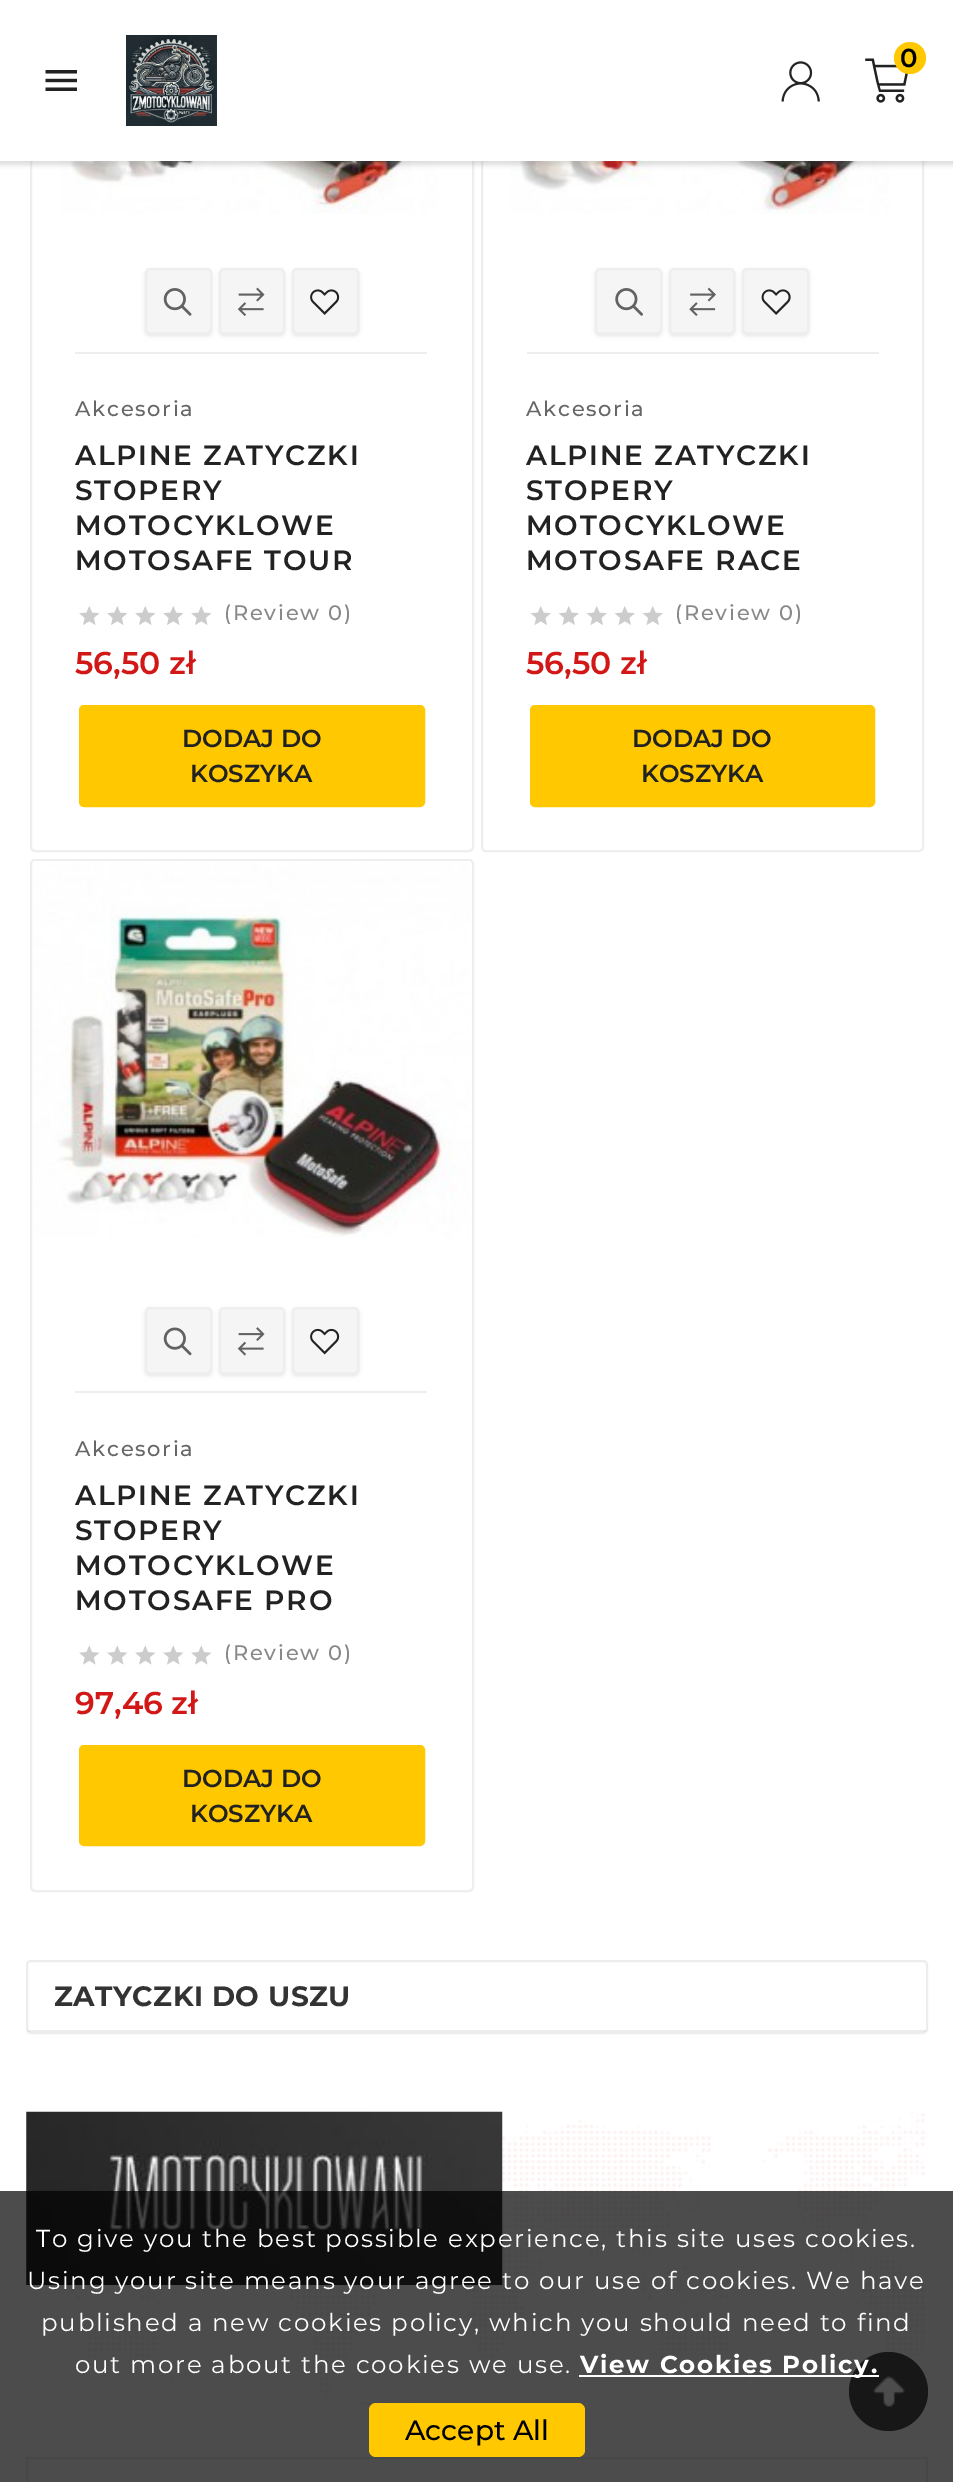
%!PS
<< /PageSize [953 2482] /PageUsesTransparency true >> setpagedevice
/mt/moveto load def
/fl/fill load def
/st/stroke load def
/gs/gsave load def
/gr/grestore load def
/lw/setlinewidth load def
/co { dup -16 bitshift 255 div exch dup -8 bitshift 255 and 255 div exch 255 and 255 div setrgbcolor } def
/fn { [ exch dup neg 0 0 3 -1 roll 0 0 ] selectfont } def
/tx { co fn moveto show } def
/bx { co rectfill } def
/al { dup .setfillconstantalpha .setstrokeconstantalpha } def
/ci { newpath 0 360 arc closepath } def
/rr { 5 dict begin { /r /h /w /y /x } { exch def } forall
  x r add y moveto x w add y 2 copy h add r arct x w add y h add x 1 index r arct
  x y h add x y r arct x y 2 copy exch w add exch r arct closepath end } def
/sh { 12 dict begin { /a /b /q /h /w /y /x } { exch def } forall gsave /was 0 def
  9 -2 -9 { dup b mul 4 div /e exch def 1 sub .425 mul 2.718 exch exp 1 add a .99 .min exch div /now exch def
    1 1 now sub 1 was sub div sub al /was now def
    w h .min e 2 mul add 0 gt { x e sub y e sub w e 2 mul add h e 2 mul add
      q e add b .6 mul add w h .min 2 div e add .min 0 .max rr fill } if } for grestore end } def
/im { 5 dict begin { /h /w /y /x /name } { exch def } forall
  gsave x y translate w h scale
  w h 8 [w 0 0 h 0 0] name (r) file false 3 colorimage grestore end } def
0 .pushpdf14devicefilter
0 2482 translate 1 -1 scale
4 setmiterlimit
0 0 953 2482 16#FFFFFF bx
16#EEEEEE co
2 lw
31 -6 442 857 4 rr st
(media/5.raw) 61 161 378 53 im
482 -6 441 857 4 rr st
(media/10.raw) 510 161 380 53 im
16#808080 co
-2 0 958 165 0 2.5 .27 sh
0 0 953 161 16#FFFFFF bx
(media/1.raw) 126 35 91 91 im
(media/2.raw) 865 58 43 45 im
16#FFC800 co
910 58 16 ci fl
(media/3.raw) 781 61 39 41 im
(media/4.raw) 45 70 32 21 im
16#000000 co
145 270 67 66 5 2 .1 sh
16#F5F5F5 co
146 269 65 64 4 rr gs fl gr
16#EEEEEE co
st
(media/6.raw) 163 288 29 28 im
16#000000 co
219 270 66 66 5 2 .1 sh
16#F5F5F5 co
220 269 64 64 4 rr gs fl gr
16#EEEEEE co
st
(media/7.raw) 237 287 28 29 im
16#000000 co
292 270 67 66 5 2 .1 sh
16#F5F5F5 co
293 269 65 64 4 rr gs fl gr
16#EEEEEE co
st
(media/8.raw) 310 289 30 26 im
75 352 352 2 16#EEEEEE bx
(media/9.raw) 79 606 21 19 im
(media/9.raw) 107 606 21 19 im
(media/9.raw) 135 606 21 19 im
(media/9.raw) 163 606 21 19 im
(media/9.raw) 191 606 21 19 im
16#FFC800 co
80 706 344 100 4 rr gs fl gr
st
16#000000 co
595 270 67 66 5 2 .1 sh
16#F5F5F5 co
596 269 65 64 4 rr gs fl gr
16#EEEEEE co
st
(media/11.raw) 615 288 28 28 im
16#000000 co
669 270 66 66 5 2 .1 sh
16#F5F5F5 co
670 269 64 64 4 rr gs fl gr
16#EEEEEE co
st
(media/12.raw) 689 287 27 29 im
16#000000 co
742 270 67 66 5 2 .1 sh
16#F5F5F5 co
743 269 65 64 4 rr gs fl gr
16#EEEEEE co
st
(media/13.raw) 761 289 30 26 im
527 352 352 2 16#EEEEEE bx
(media/14.raw) 530 606 21 19 im
(media/14.raw) 558 606 21 19 im
(media/14.raw) 586 606 21 19 im
(media/14.raw) 614 606 21 19 im
(media/14.raw) 642 606 21 19 im
16#FFC800 co
531 706 343 100 4 rr gs fl gr
st
16#EEEEEE co
31 860 442 1031 4 rr st
(media/15.raw) 33 861 438 377 im
16#000000 co
145 1309 67 67 5 2 .1 sh
16#F5F5F5 co
146 1308 65 65 4 rr gs fl gr
16#EEEEEE co
st
(media/16.raw) 163 1327 29 29 im
16#000000 co
219 1309 66 67 5 2 .1 sh
16#F5F5F5 co
220 1308 64 65 4 rr gs fl gr
16#EEEEEE co
st
(media/17.raw) 237 1327 28 29 im
16#000000 co
292 1309 67 67 5 2 .1 sh
16#F5F5F5 co
293 1308 65 65 4 rr gs fl gr
16#EEEEEE co
st
(media/18.raw) 310 1328 30 27 im
75 1391 352 2 16#EEEEEE bx
(media/19.raw) 79 1645 21 20 im
(media/19.raw) 107 1645 21 20 im
(media/19.raw) 135 1645 21 20 im
(media/19.raw) 163 1645 21 20 im
(media/19.raw) 191 1645 21 20 im
16#FFC800 co
80 1746 344 99 4 rr gs fl gr
st
16#EDEDED co
27 1961 900 72 4 rr st
0.07 al
28 2030 898 2 16#000000 bx
1 al
(media/20.raw) 26 2112 899 292 im
(media/21.raw) 26 2111 477 174 im
16#EDEDED co
27 2458 900 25 rectstroke
16#4C4C4C co
888.5 2391.5 39.5 ci fl
(media/22.raw) 873 2376 33 31 im
0.7 al
0 2191 953 291 16#000000 bx
1 al
579 2375 300 2 16#FFFFFF bx
16#FFC800 co
369 2403 216 54 7 rr fl
/Montserrat-SemiBold 26 fn
16#000000 co
900 67 mt 1.75 0 (0) ashow
/Montserrat-Medium 21 fn
16#666666 co
75 416 mt 1.75 0 (Akcesoria) ashow
/Montserrat-SemiBold 28 fn
16#222222 co
75 465 mt 1.75 0 (ALPINE ZATYCZKI) ashow
75 500 mt 1.75 0 (STOPERY) ashow
75 535 mt 1.75 0 (MOTOCYKLOWE) ashow
75 570 mt 1.75 0 (MOTOSAFE TOUR) ashow
/Montserrat-Medium 21 fn
16#888888 co
224 620 mt 1.75 0 (\(Review 0\)) ashow
(56,50 zł) 75 674 /Montserrat-SemiBold 31.5 16#D21717 tx
(DODAJ DO) 182 747 /Montserrat-SemiBold 24.5 16#222222 tx
(KOSZYKA) 190 782 /Montserrat-SemiBold 24.5 16#222222 tx
/Montserrat-Medium 21 fn
16#666666 co
526 416 mt 1.75 0 (Akcesoria) ashow
/Montserrat-SemiBold 28 fn
16#222222 co
526 465 mt 1.75 0 (ALPINE ZATYCZKI) ashow
526 500 mt 1.75 0 (STOPERY) ashow
526 535 mt 1.75 0 (MOTOCYKLOWE) ashow
526 570 mt 1.75 0 (MOTOSAFE RACE) ashow
/Montserrat-Medium 21 fn
16#888888 co
675 620 mt 1.75 0 (\(Review 0\)) ashow
(56,50 zł) 526 674 /Montserrat-SemiBold 31.5 16#D21717 tx
(DODAJ DO) 632 747 /Montserrat-SemiBold 24.5 16#222222 tx
(KOSZYKA) 641 782 /Montserrat-SemiBold 24.5 16#222222 tx
/Montserrat-Medium 21 fn
16#666666 co
75 1456 mt 1.75 0 (Akcesoria) ashow
/Montserrat-SemiBold 28 fn
16#222222 co
75 1505 mt 1.75 0 (ALPINE ZATYCZKI) ashow
75 1540 mt 1.75 0 (STOPERY) ashow
75 1575 mt 1.75 0 (MOTOCYKLOWE) ashow
75 1610 mt 1.75 0 (MOTOSAFE PRO) ashow
/Montserrat-Medium 21 fn
16#888888 co
224 1660 mt 1.75 0 (\(Review 0\)) ashow
(97,46 zł) 75 1714 /Montserrat-SemiBold 31.5 16#D21717 tx
(DODAJ DO) 182 1787 /Montserrat-SemiBold 24.5 16#222222 tx
(KOSZYKA) 190 1822 /Montserrat-SemiBold 24.5 16#222222 tx
/Montserrat-Bold 28 fn
16#333333 co
54 2006 mt .5 0 (ZATYCZKI DO USZU) ashow
/Montserrat-Regular 24.5 fn
16#FFFFFF co
36 2247 mt 1.75 0 (To give you the best possible experience, this site uses cookies.) ashow
27 2289 mt 1.75 0 (Using your site means your agree to our use of cookies. We have) ashow
41 2331 mt 1.75 0 (published a new cookies policy, which you should need to find) ashow
75 2373 mt 1.75 0 (out more about the cookies we use.) ashow
/Montserrat-Bold 24.5 fn
580 2373 mt 1.75 0 (View Cookies Policy.) ashow
(Accept All) 405 2440 /Montserrat-Medium 28 16#000000 tx
.poppdf14devicefilter showpage
